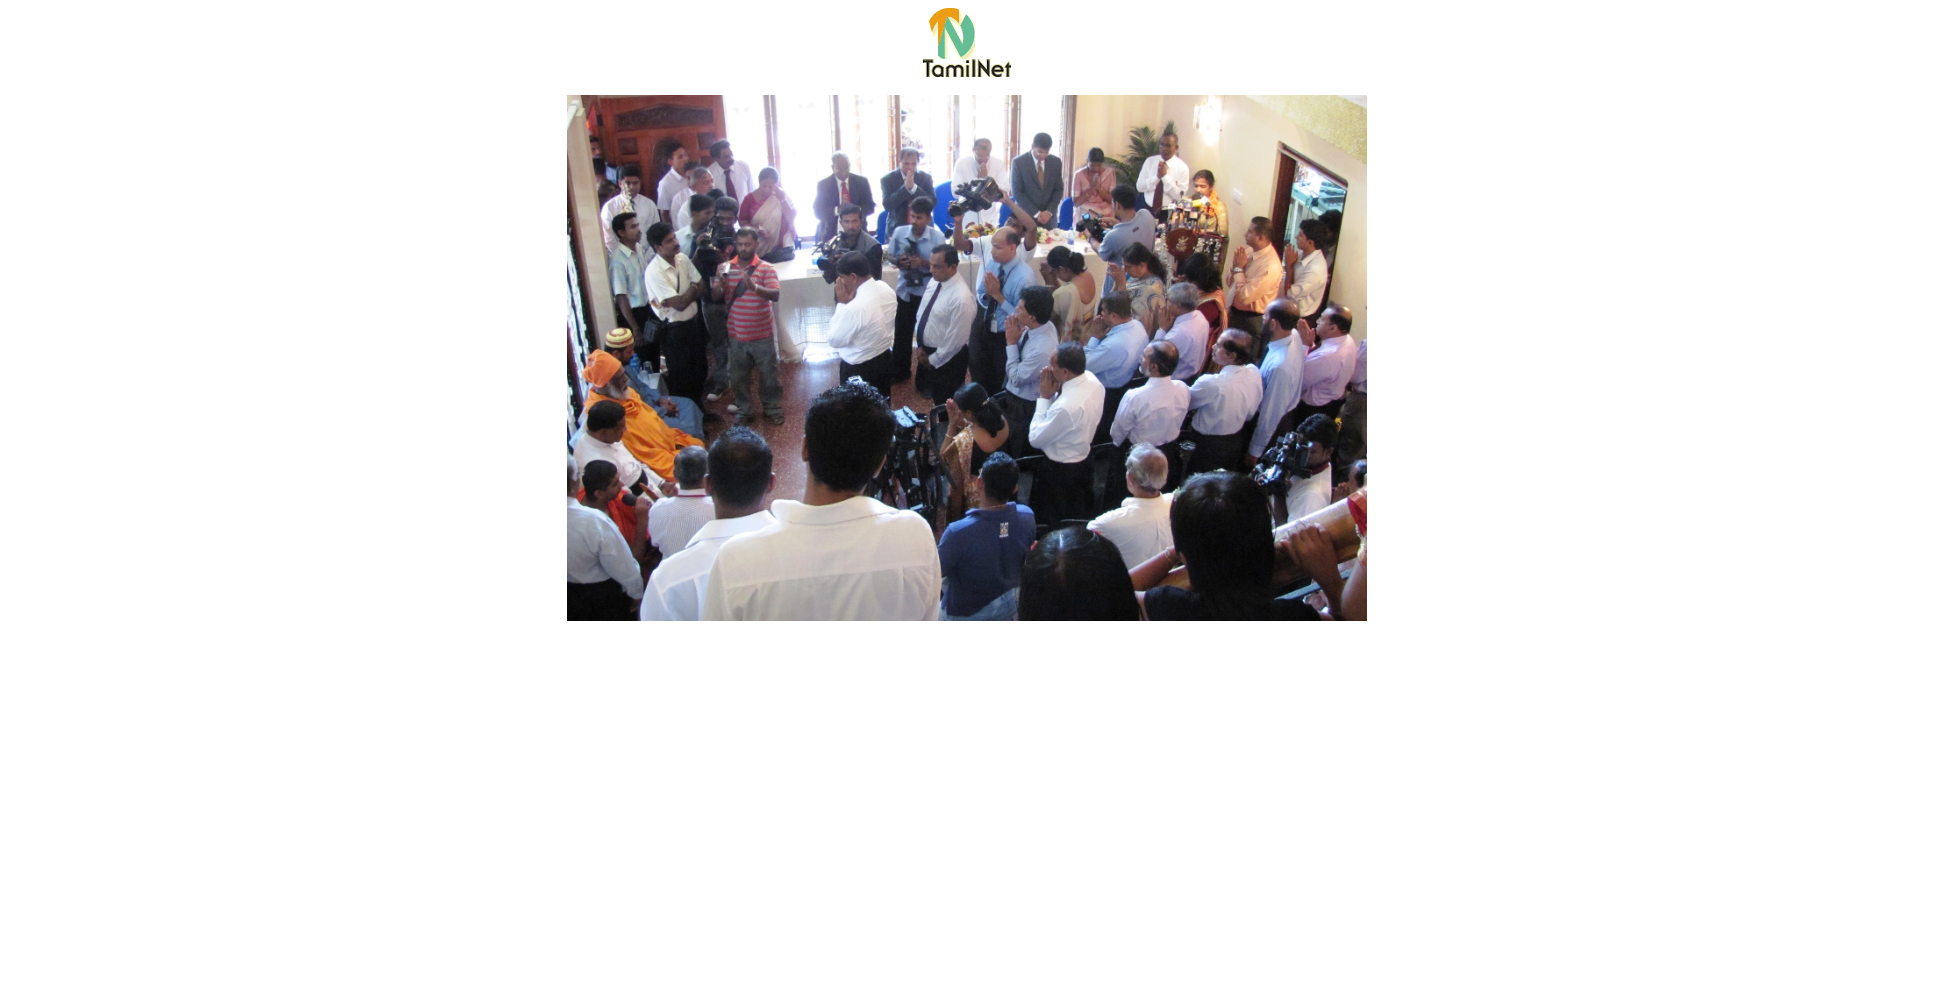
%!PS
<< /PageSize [1934 1005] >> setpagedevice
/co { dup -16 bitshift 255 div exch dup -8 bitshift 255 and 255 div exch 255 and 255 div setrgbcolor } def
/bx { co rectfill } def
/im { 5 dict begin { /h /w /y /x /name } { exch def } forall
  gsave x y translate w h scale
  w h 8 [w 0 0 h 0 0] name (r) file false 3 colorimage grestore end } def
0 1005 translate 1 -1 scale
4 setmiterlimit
0 0 1934 1005 16#FFFFFF bx
(media/1.raw) 923 8 88 69 im
(media/2.raw) 567 95 800 526 im
showpage
